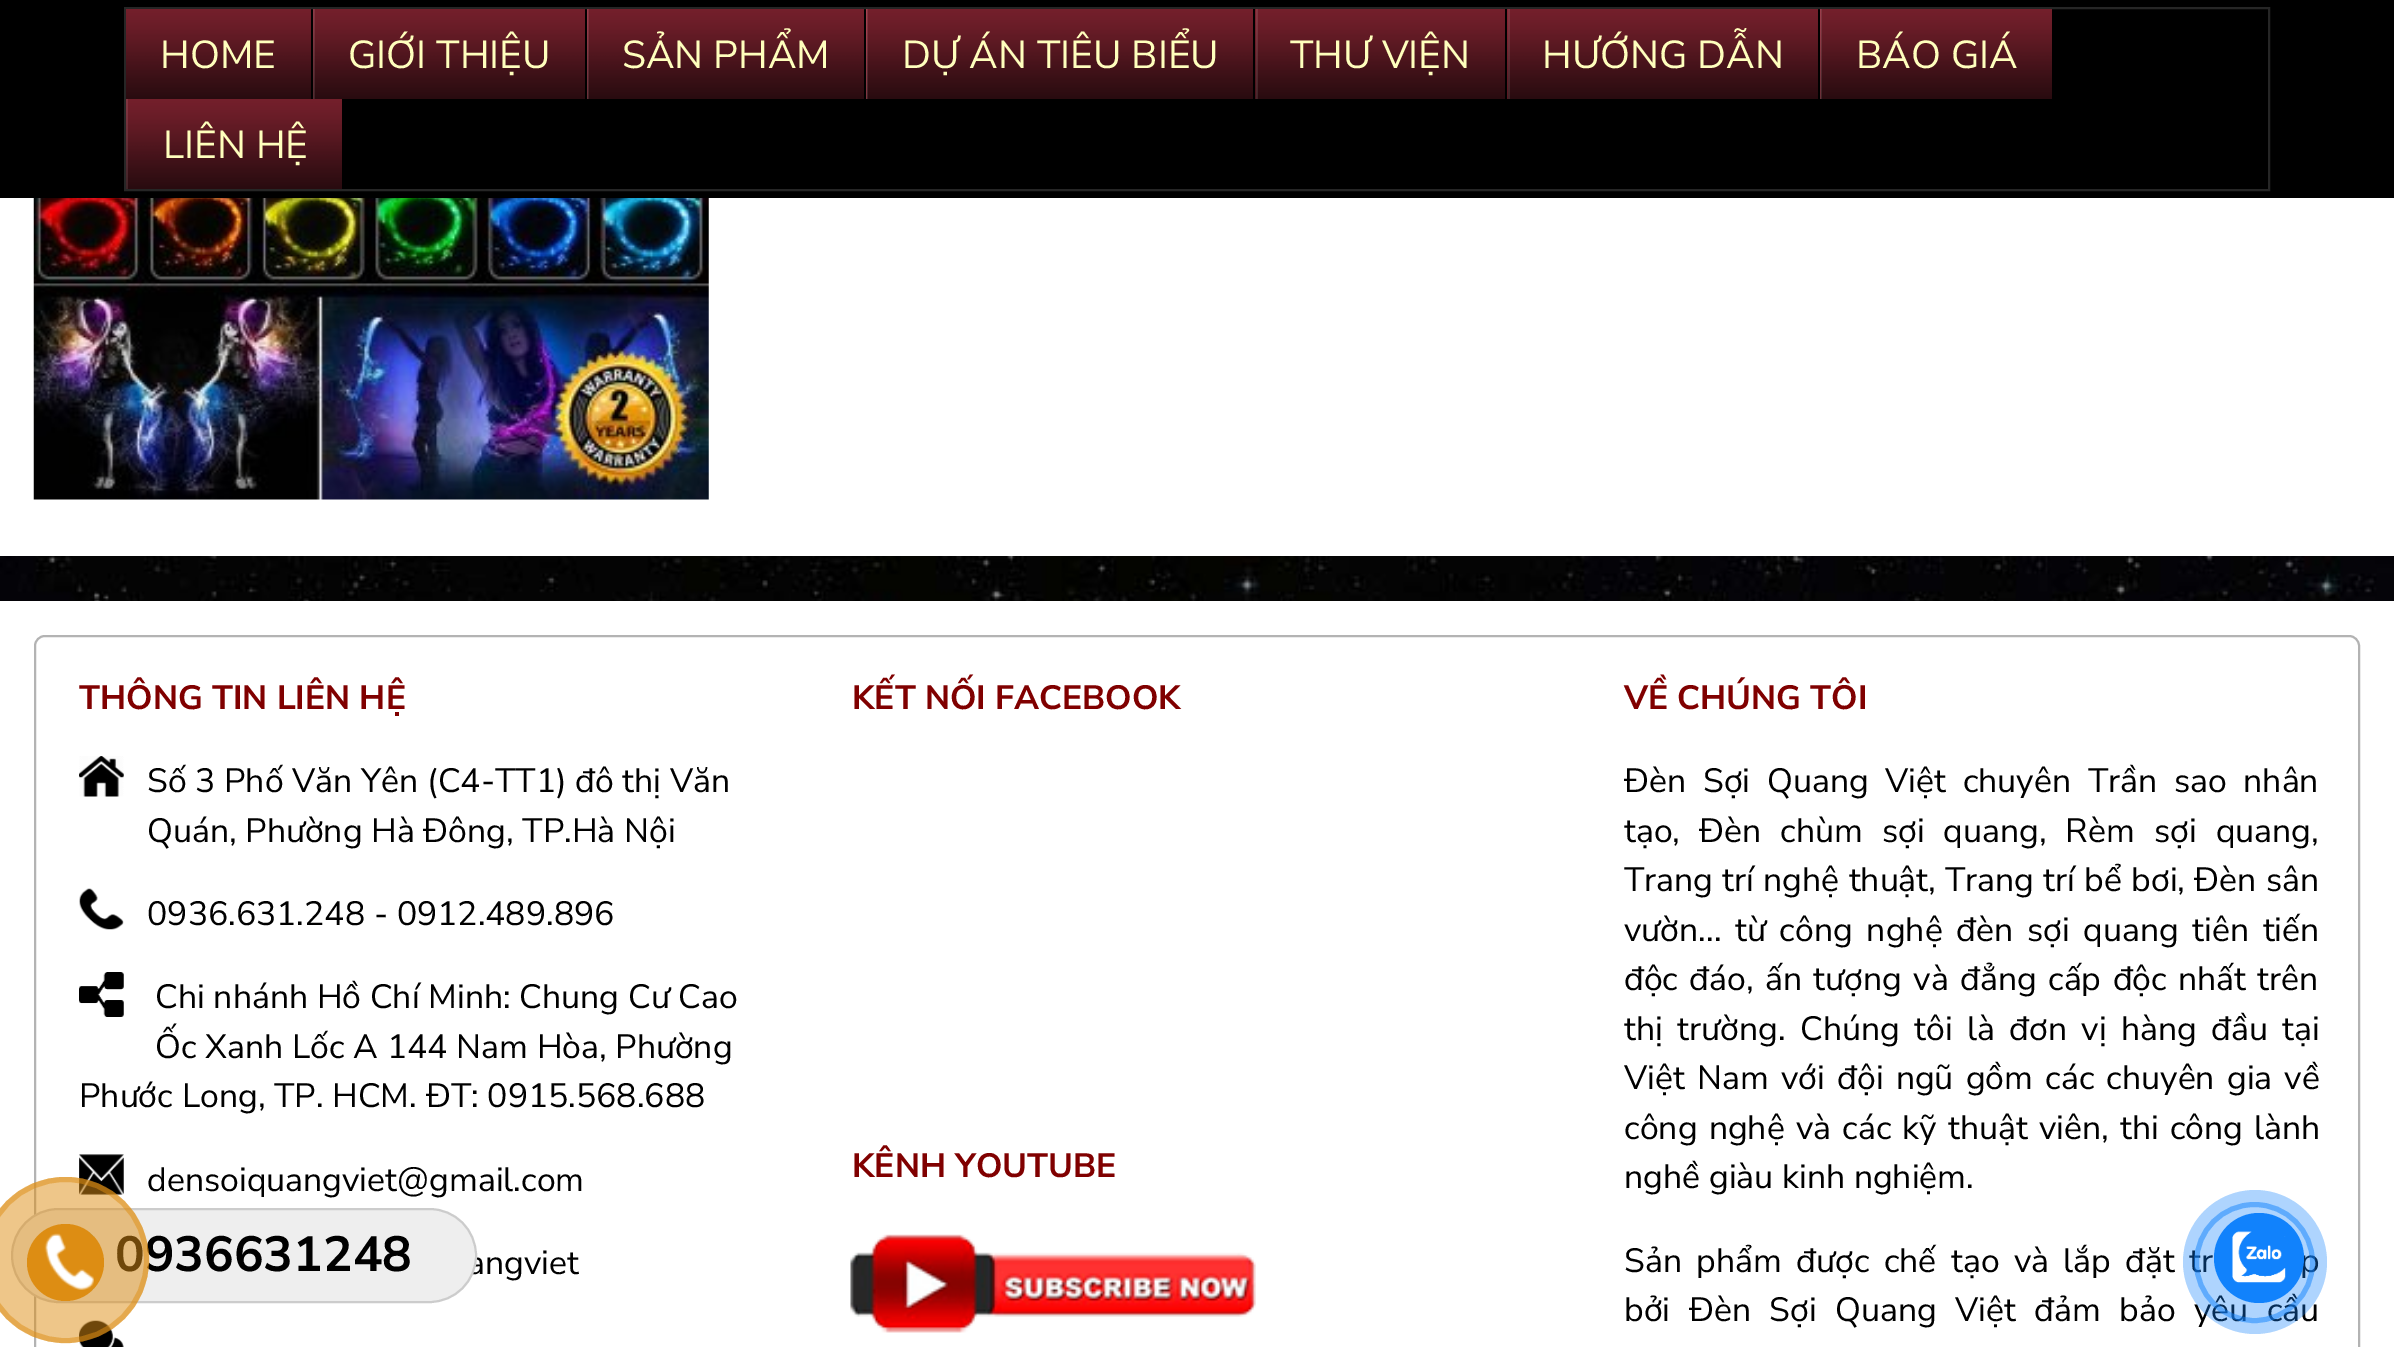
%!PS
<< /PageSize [2394 1347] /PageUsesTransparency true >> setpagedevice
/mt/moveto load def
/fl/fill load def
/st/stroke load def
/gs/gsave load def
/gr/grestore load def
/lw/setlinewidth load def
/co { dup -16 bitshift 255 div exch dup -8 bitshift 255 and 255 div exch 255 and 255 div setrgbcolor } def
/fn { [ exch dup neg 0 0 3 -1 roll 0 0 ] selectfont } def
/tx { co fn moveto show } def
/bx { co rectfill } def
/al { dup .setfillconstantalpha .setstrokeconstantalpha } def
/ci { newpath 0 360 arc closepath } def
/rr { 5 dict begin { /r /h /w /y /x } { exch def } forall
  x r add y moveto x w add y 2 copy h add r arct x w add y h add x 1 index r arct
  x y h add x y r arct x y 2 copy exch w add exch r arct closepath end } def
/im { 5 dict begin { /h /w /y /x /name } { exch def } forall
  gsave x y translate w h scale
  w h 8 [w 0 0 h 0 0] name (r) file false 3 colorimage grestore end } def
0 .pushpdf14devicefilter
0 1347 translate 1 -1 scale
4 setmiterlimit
0 0 2394 1347 16#FFFFFF bx
0 0 2394 198 16#000000 bx
16#262626 co
2 lw
125 8 2144 182 rectstroke
126 9 185 90 16#E63E56 bx
(media/1.raw) 126 9 185 90 im
313 9 272 90 16#E63E56 bx
(media/2.raw) 313 9 272 90 im
0.1 al
313 9 2 90 16#FFFFFF bx
1 al
587 9 277 90 16#E63E56 bx
(media/3.raw) 587 9 277 90 im
0.1 al
587 9 2 90 16#FFFFFF bx
1 al
866 9 952 90 16#E63E56 bx
(media/4.raw) 866 9 390 90 im
1253 9 2 90 16#000000 bx
0.1 al
866 9 2 90 16#FFFFFF bx
1 al
(media/5.raw) 1255 9 253 90 im
1505 9 2 90 16#000000 bx
0.1 al
1256 9 2 90 16#FFFFFF bx
1 al
(media/6.raw) 1507 9 311 90 im
0.1 al
1508 9 2 90 16#FFFFFF bx
1 al
1820 9 232 90 16#E63E56 bx
(media/7.raw) 1820 9 232 90 im
0.1 al
1820 9 2 90 16#FFFFFF bx
1 al
126 99 216 90 16#E63E56 bx
(media/8.raw) 126 99 216 90 im
0.1 al
126 99 2 90 16#FFFFFF bx
1 al
(media/9.raw) 33 198 676 302 im
(media/10.raw) 0 556 2394 45 im
16#B3B3B3 co
35 636 2324 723 10 rr st
(media/11.raw) 79 756 45 41 im
(media/12.raw) 79 888 45 42 im
(media/13.raw) 79 972 45 45 im
(media/14.raw) 79 1154 45 41 im
(media/15.raw) 79 1320 45 27 im
(media/16.raw) 850 1234 406 99 im
(HOME) 160 68 /NunitoSans-Regular 39 16#FFFFBD tx
(GIỚI THIỆU) 348 68 /NunitoSans-Regular 39 16#FFFFBD tx
(SẢN PHẨM) 622 68 /NunitoSans-Regular 39 16#FFFFBD tx
(DỰ ÁN TIÊU BIỂU) 902 68 /NunitoSans-Regular 39 16#FFFFBD tx
(THƯ VIỆN) 1290 68 /NunitoSans-Regular 39 16#FFFFBD tx
(HƯỚNG DẪN) 1542 68 /NunitoSans-Regular 39 16#FFFFBD tx
(BÁO GIÁ) 1856 68 /NunitoSans-Regular 39 16#FFFFBD tx
(LIÊN HỆ) 163 158 /NunitoSans-Regular 39 16#FFFFBD tx
(THÔNG TIN LIÊN HỆ) 79 709 /NunitoSans-Bold 33.75 16#800000 tx
(Số 3 Phố Văn Yên \(C4-TT1\) đô thị Văn) 147 792 /NunitoSans-Regular 33.75 16#000000 tx
(Quán, Phường Hà Đông, TP.Hà Nội) 147 842 /NunitoSans-Regular 33.75 16#000000 tx
(0936.631.248 - 0912.489.896) 147 925 /NunitoSans-Regular 33.75 16#000000 tx
(Chi nhánh Hồ Chí Minh: Chung Cư Cao) 155 1008 /NunitoSans-Regular 33.75 16#000000 tx
(Ốc Xanh Lốc A 144 Nam Hòa, Phường) 155 1058 /NunitoSans-Regular 33.75 16#000000 tx
(Phước Long, TP. HCM. ĐT: 0915.568.688) 79 1107 /NunitoSans-Regular 33.75 16#000000 tx
(densoiquangviet@gmail.com) 147 1191 /NunitoSans-Regular 33.75 16#000000 tx
(angviet) 467 1274 /NunitoSans-Regular 33.75 16#000000 tx
(KẾT NỐI FACEBOOK) 852 709 /NunitoSans-Bold 33.75 16#800000 tx
(KÊNH YOUTUBE) 852 1177 /NunitoSans-Bold 33.75 16#800000 tx
(VỀ CHÚNG TÔI) 1624 709 /NunitoSans-Bold 33.75 16#800000 tx
/NunitoSans-Regular 33.75 fn
16#000000 co
1624 792 mt 8 0 32 (Đèn Sợi Quang Việt chuyên Trần sao nhân) widthshow
1624 842 mt 10.25 0 32 (tạo, Đèn chùm sợi quang, Rèm sợi quang,) widthshow
1624 891 mt .5 0 32 (Trang trí nghệ thuật, Trang trí bể bơi, Đèn sân) widthshow
1624 941 mt 5 0 32 (vườn... từ công nghệ đèn sợi quang tiên tiến) widthshow
1624 990 mt 2.75 0 32 (độc đáo, ấn tượng và đẳng cấp độc nhất trên) widthshow
1624 1040 mt 5.75 0 32 (thị trường. Chúng tôi là đơn vị hàng đầu tại) widthshow
1624 1089 mt 3.5 0 32 (Việt Nam với đội ngũ gồm các chuyên gia về) widthshow
1624 1139 mt 2.5 0 32 (công nghệ và các kỹ thuật viên, thi công lành) widthshow
(nghề giàu kinh nghiệm.) 1624 1188 /NunitoSans-Regular 33.75 16#000000 tx
1624 1272 mt 5.75 0 32 (Sản phẩm được chế tạo và lắp đặt tr) widthshow
2300 1272 mt 5.75 0 32 (p) widthshow
1624 1321 mt 9.75 0 32 (bởi Đèn Sợi Quang Việt đảm bảo yêu cầu) widthshow
16#EEEEEE co
12 1209 464 93 46.5 rr gs fl gr
16#CCCCCC co
st
(0936631248) 115 1271 /NunitoSans-Bold 49.5 16#000000 tx
0.5 al
16#DD8D13 co
-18 1177 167 166 83 rr fl
5 lw
-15.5 1179.5 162 161 80.5 rr st
1 al
65.5 1262.5 38.5 ci fl
(media/17.raw) 44 1233 50 57 im
0.5 al
16#1182FC co
2254.5 1262.5 58 ci st
0.34 al
2255 1262 72 ci fl
1 al
2259 1258 45 ci fl
(media/18.raw) 2232 1231 54 52 im
.poppdf14devicefilter showpage
